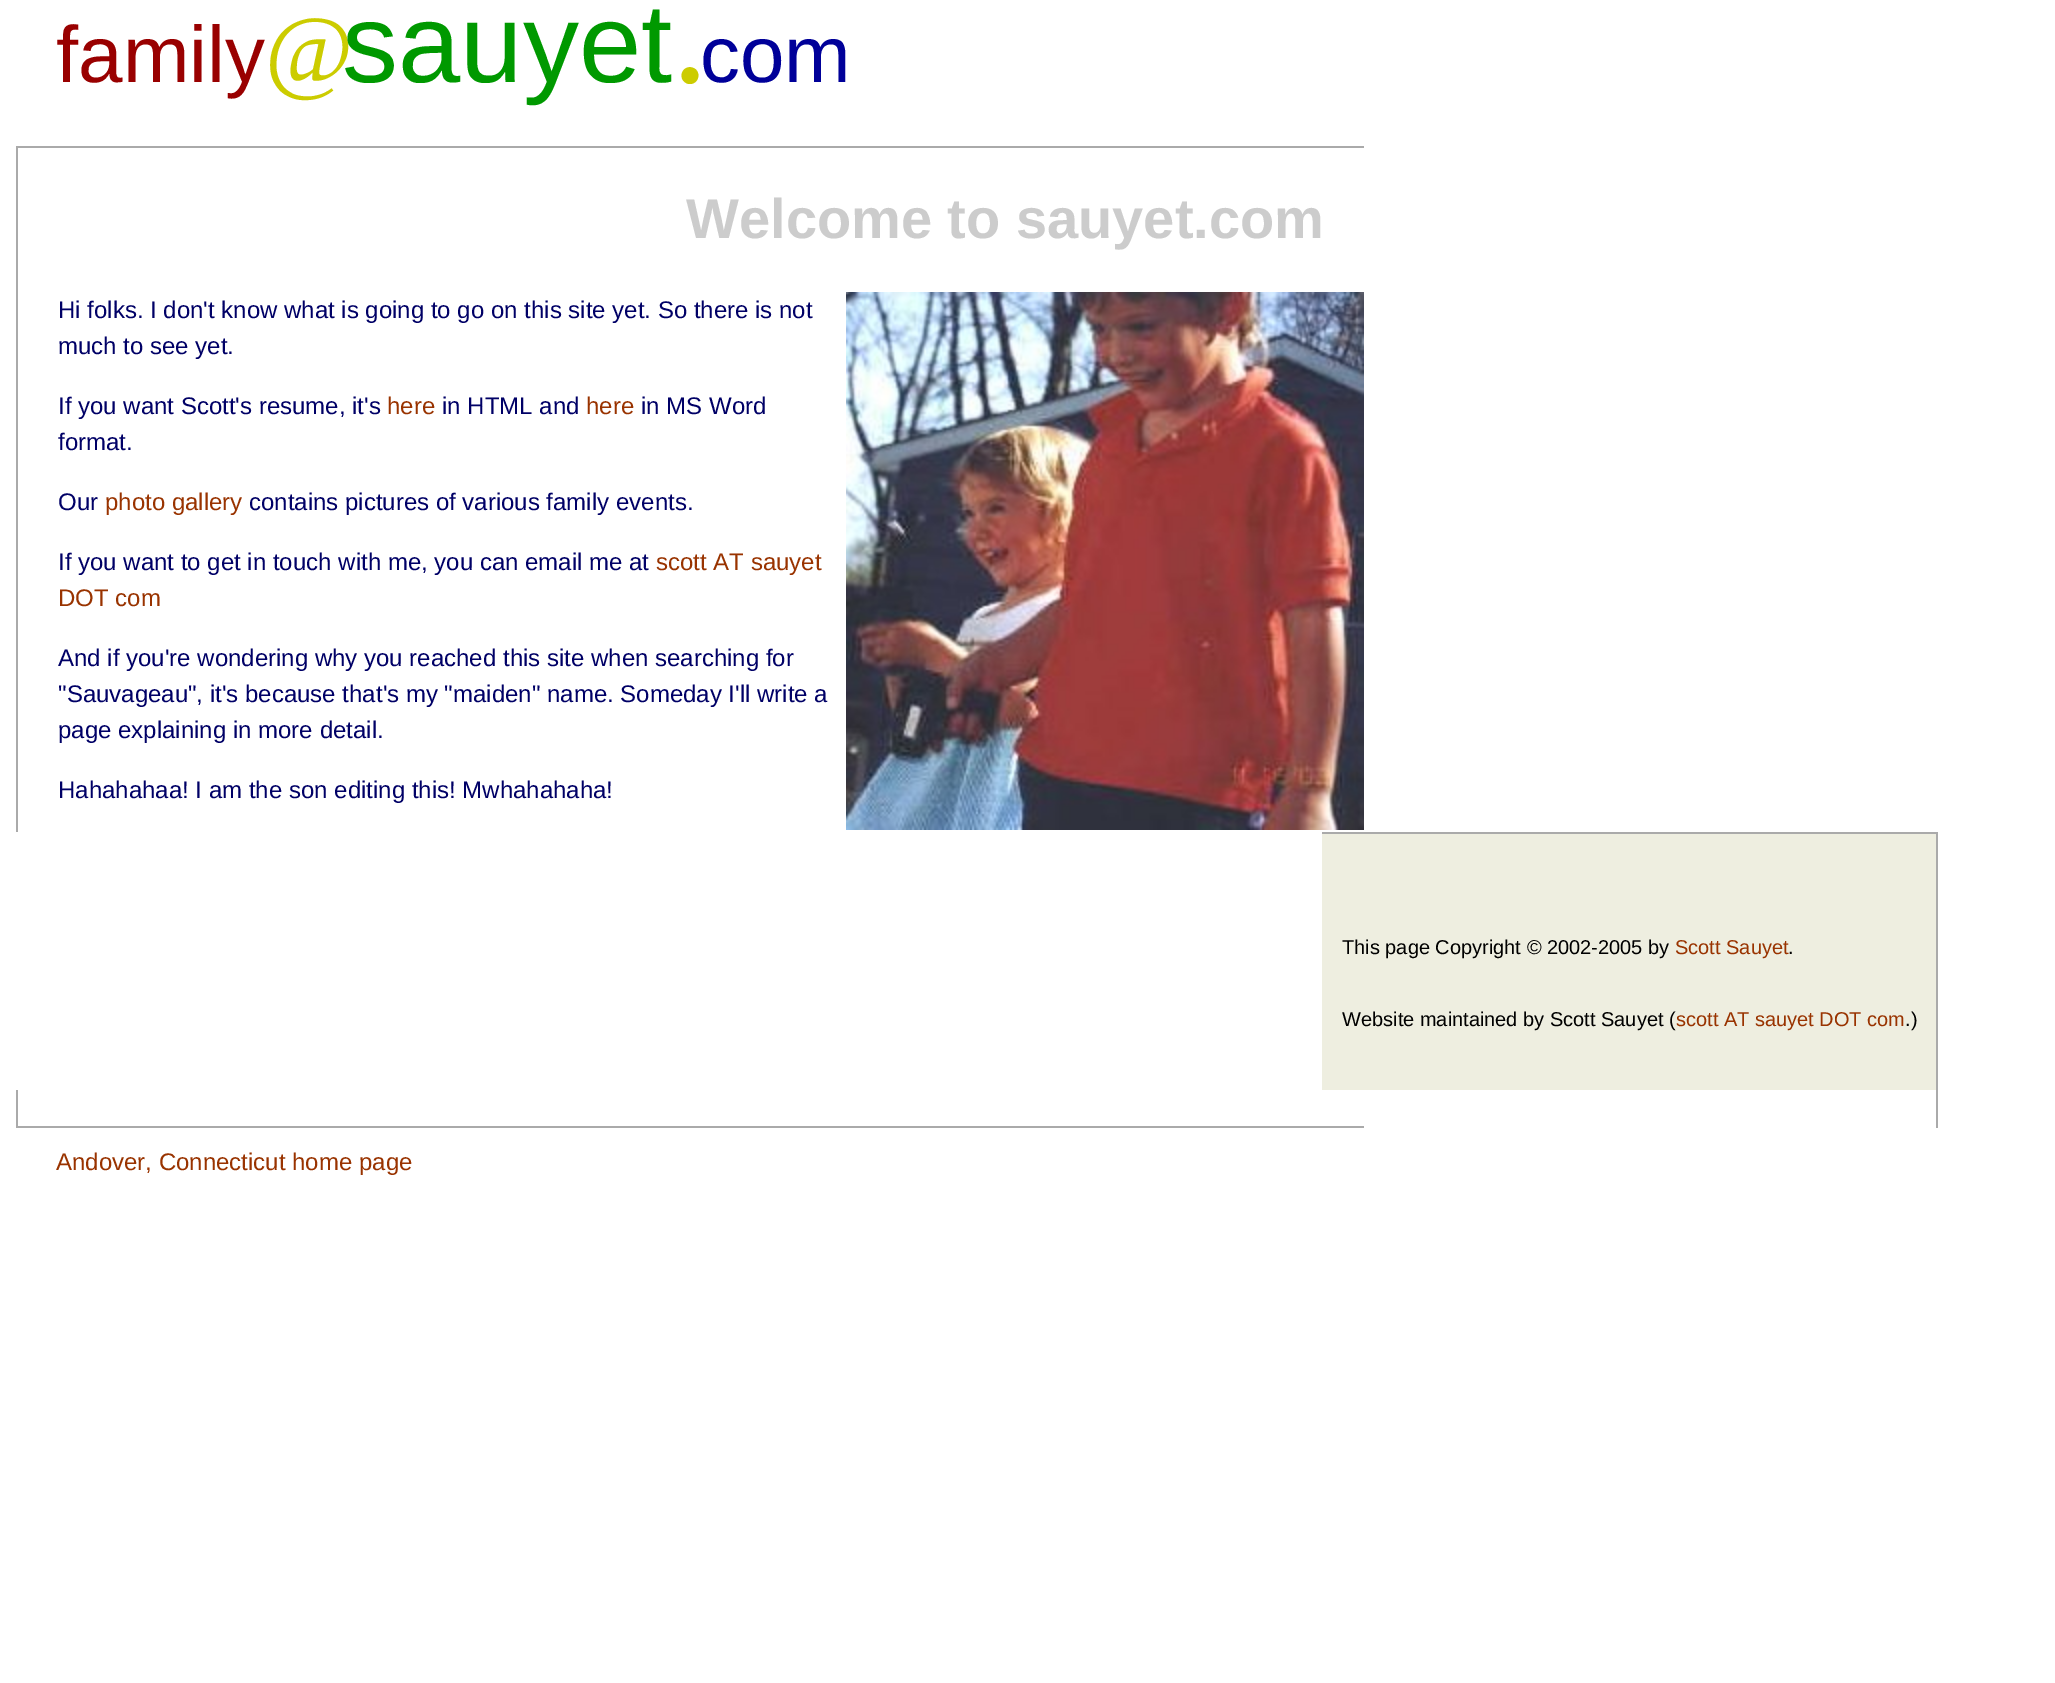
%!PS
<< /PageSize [2055 1683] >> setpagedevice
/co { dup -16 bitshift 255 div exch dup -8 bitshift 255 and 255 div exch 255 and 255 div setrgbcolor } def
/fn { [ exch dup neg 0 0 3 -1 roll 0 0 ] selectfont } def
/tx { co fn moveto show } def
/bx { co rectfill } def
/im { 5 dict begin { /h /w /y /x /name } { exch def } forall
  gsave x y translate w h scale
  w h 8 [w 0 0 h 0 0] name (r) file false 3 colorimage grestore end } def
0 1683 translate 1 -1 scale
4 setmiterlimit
0 0 2055 1683 16#FFFFFF bx
16 146 1348 2 16#AAAAAA bx
16 146 2 686 16#AAAAAA bx
(media/1.raw) 846 292 518 538 im
1322 834 614 256 16#EEEEE0 bx
1322 832 616 2 16#AAAAAA bx
1936 832 2 296 16#AAAAAA bx
16 1126 1348 2 16#AAAAAA bx
16 1090 2 38 16#AAAAAA bx
(family) 56 82 /LiberationSans-Regular 80 16#990000 tx
(@) 265 82 /LiberationSerif-Regular 96 16#CCCC00 tx
(sauyet) 342 82 /LiberationSans-Regular 112 16#009900 tx
(.) 672 82 /LiberationSerif-Regular 144 16#CCCC00 tx
(com) 700 82 /LiberationSans-Regular 80 16#000099 tx
(Welcome to sauyet.com) 686 238 /LiberationSans-Bold 56 16#CCCCCC tx
(Hi folks. I don't know what is going to go on this site yet. So there is not) 58 318 /LiberationSans-Regular 24 16#000066 tx
(much to see yet.) 58 354 /LiberationSans-Regular 24 16#000066 tx
(If you want Scott's resume, it's) 58 414 /LiberationSans-Regular 24 16#000066 tx
(here) 387 414 /LiberationSans-Regular 24 16#993300 tx
(in HTML and) 442 414 /LiberationSans-Regular 24 16#000066 tx
(here) 586 414 /LiberationSans-Regular 24 16#993300 tx
(in MS Word) 641 414 /LiberationSans-Regular 24 16#000066 tx
(format.) 58 450 /LiberationSans-Regular 24 16#000066 tx
(Our) 58 510 /LiberationSans-Regular 24 16#000066 tx
(photo gallery) 105 510 /LiberationSans-Regular 24 16#993300 tx
(contains pictures of various family events.) 249 510 /LiberationSans-Regular 24 16#000066 tx
(If you want to get in touch with me, you can email me at) 58 570 /LiberationSans-Regular 24 16#000066 tx
(scott AT sauyet) 656 570 /LiberationSans-Regular 24 16#993300 tx
(DOT com) 58 606 /LiberationSans-Regular 24 16#993300 tx
(And if you're wondering why you reached this site when searching for) 58 666 /LiberationSans-Regular 24 16#000066 tx
("Sauvageau", it's because that's my "maiden" name. Someday I'll write a) 58 702 /LiberationSans-Regular 24 16#000066 tx
(page explaining in more detail.) 58 738 /LiberationSans-Regular 24 16#000066 tx
(Hahahahaa! I am the son editing this! Mwhahahaha!) 58 798 /LiberationSans-Regular 24 16#000066 tx
(This page Copyright © 2002-2005 by) 1342 954 /LiberationSans-Regular 20 16#000000 tx
(Scott Sauyet) 1675 954 /LiberationSans-Regular 20 16#993300 tx
(.) 1788 954 /LiberationSans-Regular 20 16#000000 tx
(Website maintained by Scott Sauyet \() 1342 1026 /LiberationSans-Regular 20 16#000000 tx
(scott AT sauyet DOT com) 1676 1026 /LiberationSans-Regular 20 16#993300 tx
(.\)) 1905 1026 /LiberationSans-Regular 20 16#000000 tx
(Andover, Connecticut home page) 56 1170 /LiberationSans-Regular 24 16#993300 tx
showpage
